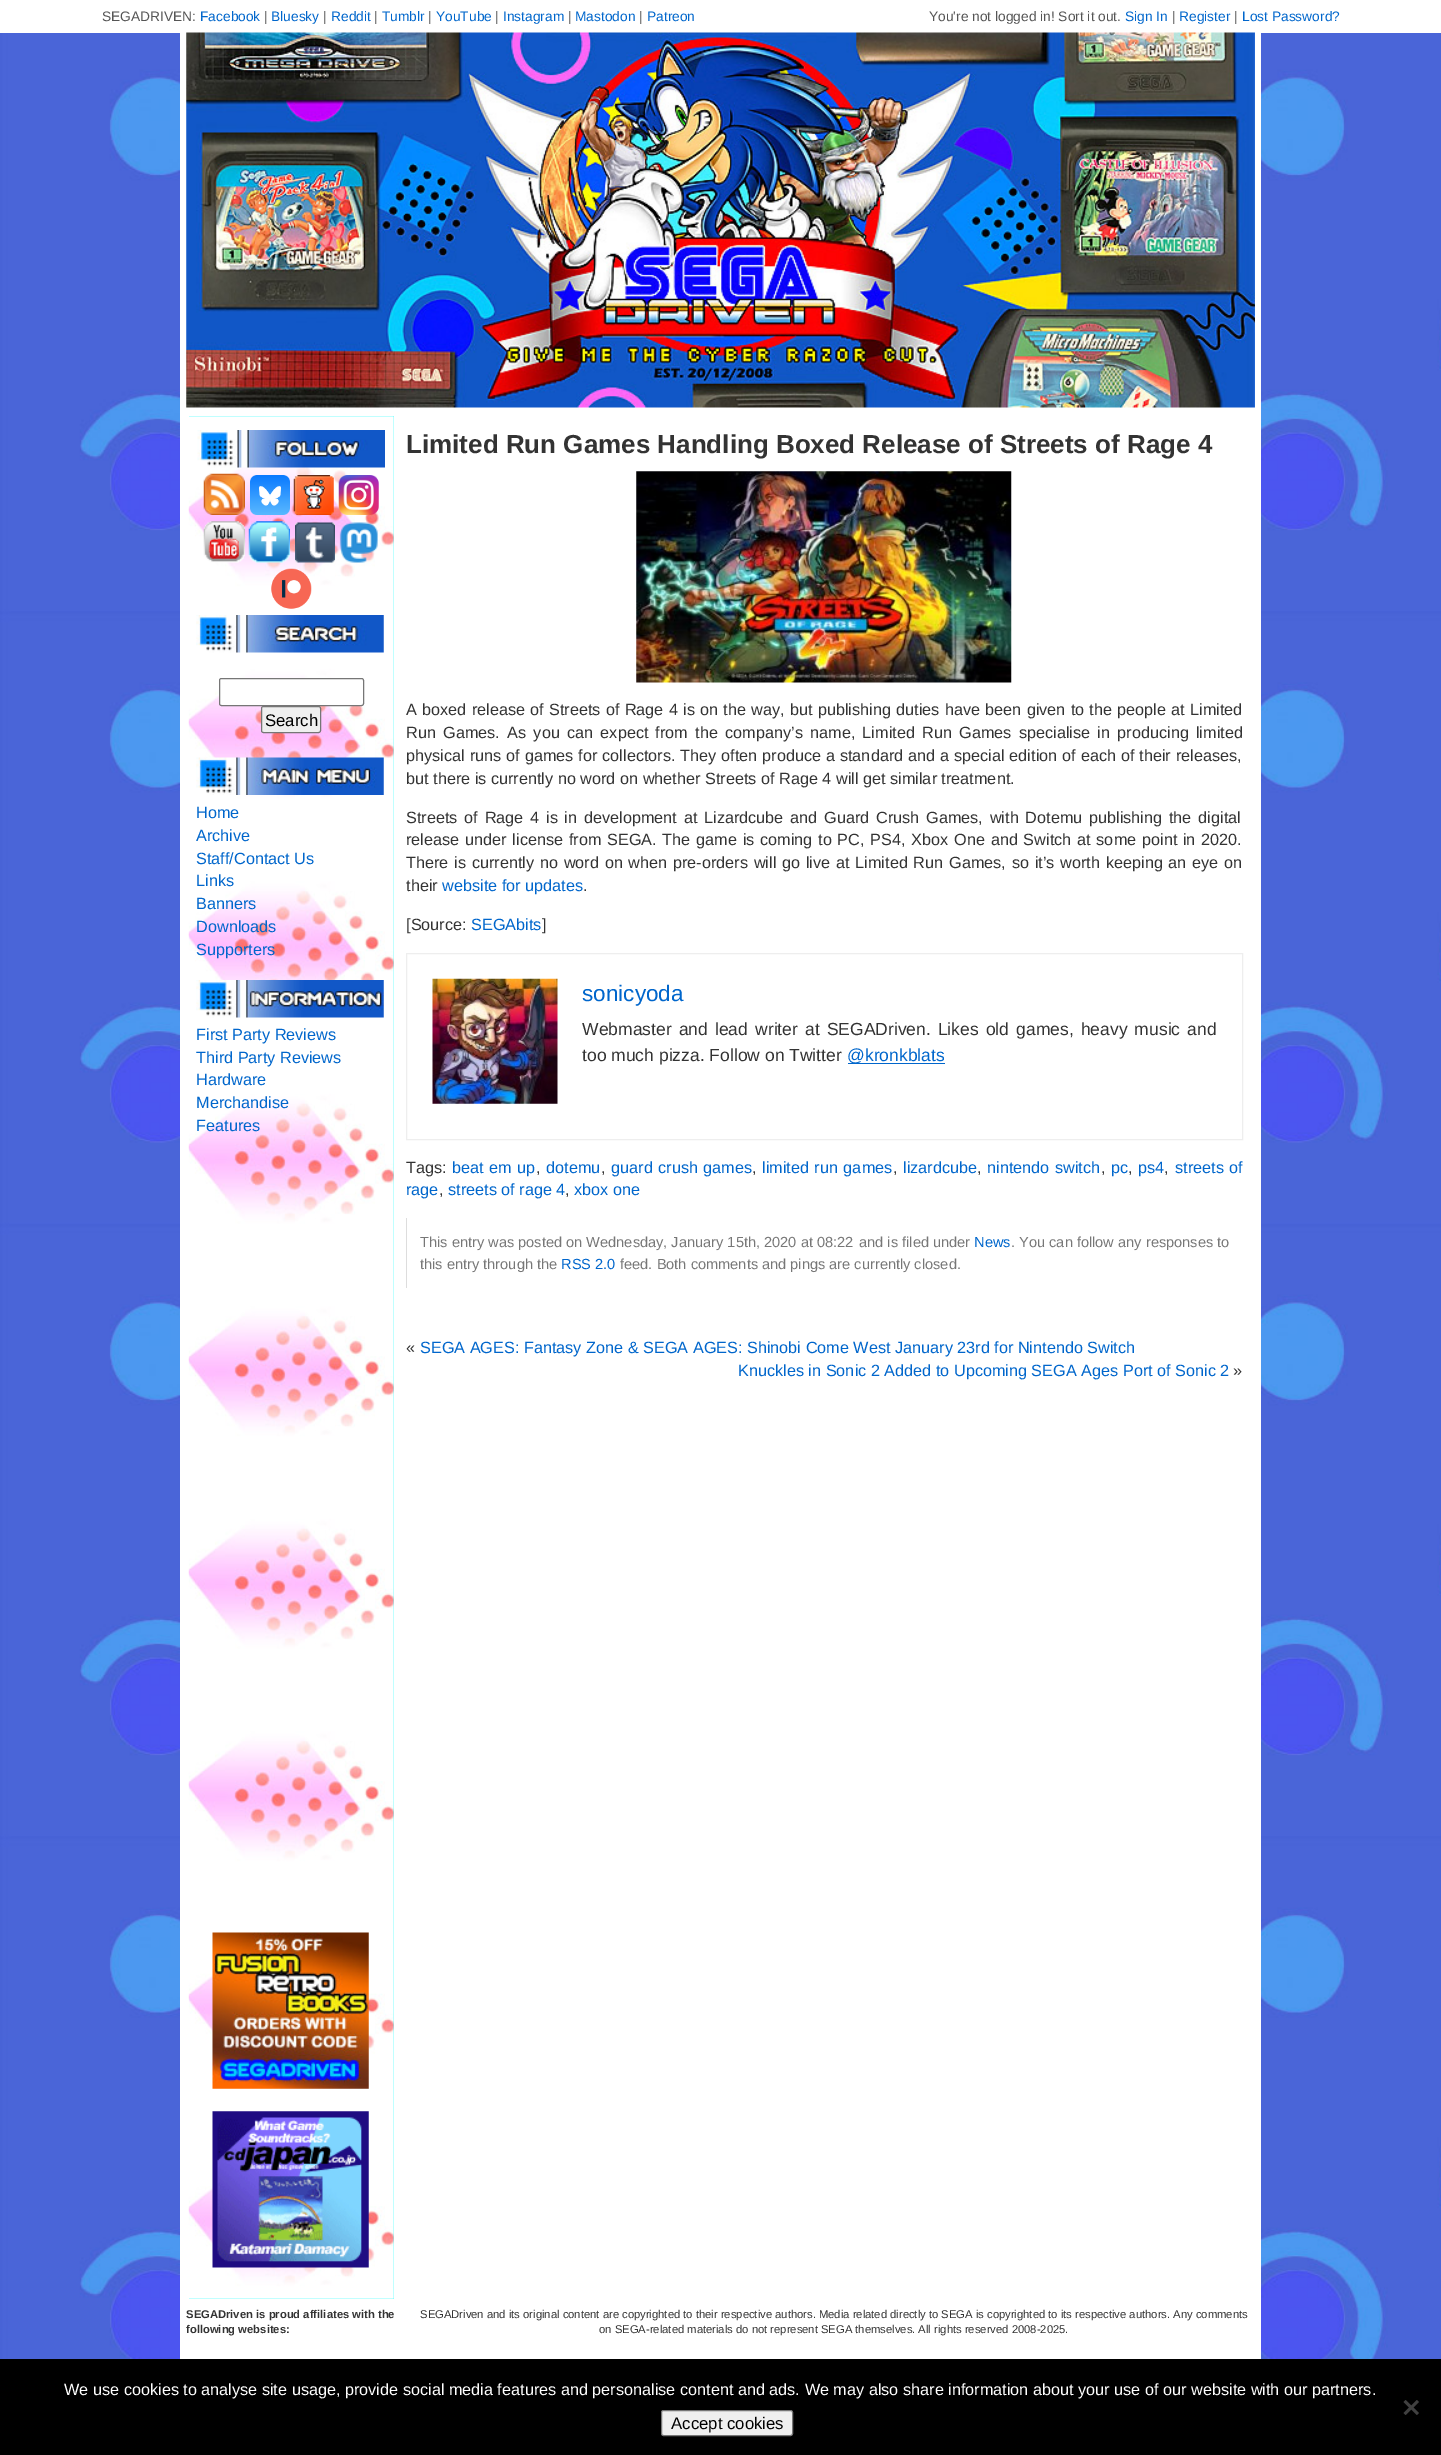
%!PS
<< /PageSize [1441 2455] >> setpagedevice
/mt/moveto load def
/li/lineto load def
/cp/closepath load def
/fl/fill load def
/st/stroke load def
/gs/gsave load def
/gr/grestore load def
/co { dup -16 bitshift 255 div exch dup -8 bitshift 255 and 255 div exch 255 and 255 div setrgbcolor } def
/fn { [ exch dup neg 0 0 3 -1 roll 0 0 ] selectfont } def
/tx { co fn moveto show } def
/bx { co rectfill } def
/rr { 5 dict begin { /r /h /w /y /x } { exch def } forall
  x r add y moveto x w add y 2 copy h add r arct x w add y h add x 1 index r arct
  x y h add x y r arct x y 2 copy exch w add exch r arct closepath end } def
/im { 5 dict begin { /h /w /y /x /name } { exch def } forall
  gsave x y translate w h scale
  w h 8 [w 0 0 h 0 0] name (r) file false 3 colorimage grestore end } def
0 2455 translate 1 -1 scale
4 setmiterlimit
0 0 1441 2455 16#FFFFFF bx
(media/1.raw) 0 33 1441 2326 im
180 33 1081 2326 16#FFFFFF bx
(media/2.raw) 186 32 1069 376 im
189 416 205 1883 16#00FFFF bx
(media/3.raw) 188 416 206 1883 im
(media/4.raw) 197 430 188 38 im
(media/5.raw) 203 473 42 42 im
(media/6.raw) 250 475 40 40 im
(media/7.raw) 293 475 41 40 im
(media/8.raw) 338 475 41 40 im
(media/9.raw) 203 521 42 42 im
(media/10.raw) 248 521 42 42 im
(media/11.raw) 295 522 40 41 im
(media/12.raw) 339 522 39 41 im
(media/13.raw) 271 568 41 41 im
(media/14.raw) 196 615 188 38 im
16#FFFFFF co
219.5 678.5 144 27 2 rr gs fl gr
16#767676 co
st
16#EFEFEF co
261.5 706.5 59 26 2 rr gs fl gr
16#767676 co
st
(media/15.raw) 196 757 188 38 im
(media/16.raw) 196 980 188 38 im
(media/17.raw) 212 1932 157 157 im
(media/18.raw) 212 2111 157 157 im
(media/19.raw) 636 471 376 212 im
16#EEEEEE co
406.5 953.5 836 186 rectstroke
(media/20.raw) 432 978 126 126 im
848 1063 97 1 16#0066CC bx
406 1218 1 70 16#DDDDDD bx
0 2359 1441 96 16#000000 bx
16#404040 co
1417 2400 mt 1419 2402 li 1405.5 2415 li 1403.5 2413 li cp fl
1403.5 2402 mt 1405.5 2400 li 1419 2413 li 1417 2415 li cp fl
16#EFEFEF co
661.5 2410.5 131 25 2 rr gs fl gr
16#767676 co
st
(SEGADRIVEN:) 102 21 /LiberationSans-Regular 13.75 16#555555 tx
(Facebook) 200 21 /LiberationSans-Regular 13.75 16#0066CC tx
(|) 264 21 /LiberationSans-Regular 13.75 16#555555 tx
(Bluesky) 271 21 /LiberationSans-Regular 13.75 16#0066CC tx
(|) 323 21 /LiberationSans-Regular 13.75 16#555555 tx
(Reddit) 331 21 /LiberationSans-Regular 13.75 16#0066CC tx
(|) 374 21 /LiberationSans-Regular 13.75 16#555555 tx
(Tumblr) 382 21 /LiberationSans-Regular 13.75 16#0066CC tx
(|) 428 21 /LiberationSans-Regular 13.75 16#555555 tx
(YouTube) 436 21 /LiberationSans-Regular 13.75 16#0066CC tx
(|) 495 21 /LiberationSans-Regular 13.75 16#555555 tx
(Instagram) 503 21 /LiberationSans-Regular 13.75 16#0066CC tx
(|) 568 21 /LiberationSans-Regular 13.75 16#555555 tx
(Mastodon) 575 21 /LiberationSans-Regular 13.75 16#0066CC tx
(|) 639 21 /LiberationSans-Regular 13.75 16#555555 tx
(Patreon) 647 21 /LiberationSans-Regular 13.75 16#0066CC tx
(You're not logged in! Sort it out.) 929 21 /LiberationSans-Regular 13.75 16#555555 tx
(Sign In) 1125 21 /LiberationSans-Regular 13.75 16#0066CC tx
(|) 1172 21 /LiberationSans-Regular 13.75 16#555555 tx
(Register) 1179 21 /LiberationSans-Regular 13.75 16#0066CC tx
(|) 1234 21 /LiberationSans-Regular 13.75 16#555555 tx
(Lost Password?) 1242 21 /LiberationSans-Regular 13.75 16#0066CC tx
(Search) 265 726 /LiberationSans-Regular 16.75 16#000000 tx
(Home) 196 818 /LiberationSans-Regular 16.25 16#0066CC tx
(Archive) 196 841 /LiberationSans-Regular 16.25 16#0066CC tx
(Staff/Contact Us) 196 864 /LiberationSans-Regular 16.25 16#0066CC tx
(Links) 196 886 /LiberationSans-Regular 16.25 16#0066CC tx
(Banners) 196 909 /LiberationSans-Regular 16.25 16#0066CC tx
(Downloads) 196 932 /LiberationSans-Regular 16.25 16#0066CC tx
(Supporters) 196 955 /LiberationSans-Regular 16.25 16#0066CC tx
(First Party Reviews) 196 1040 /LiberationSans-Regular 16.25 16#0066CC tx
(Third Party Reviews) 196 1063 /LiberationSans-Regular 16.25 16#0066CC tx
(Hardware) 196 1085 /LiberationSans-Regular 16.25 16#0066CC tx
(Merchandise) 196 1108 /LiberationSans-Regular 16.25 16#0066CC tx
(Features) 196 1131 /LiberationSans-Regular 16.25 16#0066CC tx
(Limited Run Games Handling Boxed Release of Streets of Rage 4) 406 453 /LiberationSans-Bold 26 16#333333 tx
/LiberationSans-Regular 16.25 fn
406 715 mt .75 0 32 (A boxed release of Streets of Rage 4 is on the way, but publishing duties have been given to the people at Limited) widthshow
406 738 mt 2.75 0 32 (Run Games. As you can expect from the company’s name, Limited Run Games specialise in producing limited) widthshow
406 761 mt .4 0 32 (physical runs of games for collectors. They often produce a standard and a special edition of each of their releases,) widthshow
(but there is currently no word on whether Streets of Rage 4 will get similar treatment.) 406 784 /LiberationSans-Regular 16.25 16#333333 tx
406 823 mt 2.25 0 32 (Streets of Rage 4 is in development at Lizardcube and Guard Crush Games, with Dotemu publishing the digital) widthshow
406 845 mt 1.25 0 32 (release under license from SEGA. The game is coming to PC, PS4, Xbox One and Switch at some point in 2020.) widthshow
406 868 mt 1.25 0 32 (There is currently no word on when pre-orders will go live at Limited Run Games, so it’s worth keeping an eye on) widthshow
(their) 406 891 /LiberationSans-Regular 16.25 16#333333 tx
(website for updates) 442 891 /LiberationSans-Regular 16.25 16#0066CC tx
(.) 583 891 /LiberationSans-Regular 16.25 16#333333 tx
([Source:) 406 930 /LiberationSans-Regular 16.25 16#333333 tx
(SEGAbits) 471 930 /LiberationSans-Regular 16.25 16#0066CC tx
(]) 542 930 /LiberationSans-Regular 16.25 16#333333 tx
(sonicyoda) 582 1001 /LiberationSans-Regular 22.5 16#0066CC tx
/LiberationSans-Regular 17.5 fn
16#333333 co
582 1035 mt 2.25 0 32 (Webmaster and lead writer at SEGADriven. Likes old games, heavy music and) widthshow
(too much pizza. Follow on Twitter) 582 1061 /LiberationSans-Regular 17.5 16#333333 tx
(@kronkblats) 847 1061 /LiberationSans-Regular 17.5 16#0066CC tx
(Tags:) 406 1173 /LiberationSans-Regular 16.25 16#333333 tx
16#0066CC co
452 1173 mt 1 0 32 (beat em up) widthshow
(,) 536 1173 /LiberationSans-Regular 16.25 16#333333 tx
(dotemu) 546 1173 /LiberationSans-Regular 16.25 16#0066CC tx
(,) 601 1173 /LiberationSans-Regular 16.25 16#333333 tx
16#0066CC co
611 1173 mt 1 0 32 (guard crush games) widthshow
(,) 752 1173 /LiberationSans-Regular 16.25 16#333333 tx
16#0066CC co
762 1173 mt 1 0 32 (limited run games) widthshow
(,) 893 1173 /LiberationSans-Regular 16.25 16#333333 tx
(lizardcube) 903 1173 /LiberationSans-Regular 16.25 16#0066CC tx
(,) 977 1173 /LiberationSans-Regular 16.25 16#333333 tx
16#0066CC co
987 1173 mt 1 0 32 (nintendo switch) widthshow
(,) 1101 1173 /LiberationSans-Regular 16.25 16#333333 tx
(pc) 1111 1173 /LiberationSans-Regular 16.25 16#0066CC tx
(,) 1128 1173 /LiberationSans-Regular 16.25 16#333333 tx
(ps4) 1138 1173 /LiberationSans-Regular 16.25 16#0066CC tx
(,) 1164 1173 /LiberationSans-Regular 16.25 16#333333 tx
16#0066CC co
1175 1173 mt 1 0 32 (streets of) widthshow
(rage) 406 1195 /LiberationSans-Regular 16.25 16#0066CC tx
(,) 439 1195 /LiberationSans-Regular 16.25 16#333333 tx
(streets of rage 4) 448 1195 /LiberationSans-Regular 16.25 16#0066CC tx
(,) 565 1195 /LiberationSans-Regular 16.25 16#333333 tx
(xbox one) 574 1195 /LiberationSans-Regular 16.25 16#0066CC tx
(This entry was posted on Wednesday, January 15th, 2020 at 08:22) 420 1247 /LiberationSans-Regular 14.6 16#777777 tx
(and is filed under) 859 1247 /LiberationSans-Regular 14.6 16#777777 tx
(News) 974 1247 /LiberationSans-Regular 14.6 16#0066CC tx
(. You can follow any responses to) 1011 1247 /LiberationSans-Regular 14.6 16#777777 tx
(this entry through the) 420 1269 /LiberationSans-Regular 14.6 16#777777 tx
(RSS 2.0) 561 1269 /LiberationSans-Regular 14.6 16#0066CC tx
(feed. Both comments and pings are currently closed.) 620 1269 /LiberationSans-Regular 14.6 16#777777 tx
(«) 406 1353 /LiberationSans-Regular 16.25 16#333333 tx
(SEGA AGES: Fantasy Zone & SEGA AGES: Shinobi Come West January 23rd for Nintendo Switch) 420 1353 /LiberationSans-Regular 16.25 16#0066CC tx
(Knuckles in Sonic 2 Added to Upcoming SEGA Ages Port of Sonic 2) 738 1376 /LiberationSans-Regular 16.25 16#0066CC tx
(») 1233 1376 /LiberationSans-Regular 16.25 16#333333 tx
(SEGADriven is proud affiliates with the) 186 2318 /LiberationSans-Bold 11.25 16#333333 tx
(following websites:) 186 2333 /LiberationSans-Bold 11.25 16#333333 tx
(SEGADriven and its original content are copyrighted to their respective authors. Media related directly to SEGA is copyrighted to its respective authors. Any comments) 420 2318 /LiberationSans-Regular 11.25 16#333333 tx
(on SEGA-related materials do not represent SEGA themselves. All rights reserved 2008-2025.) 599 2333 /LiberationSans-Regular 11.25 16#333333 tx
(We use cookies to analyse site usage, provide social media features and personalise content and ads. We may also share information about your use of our website with our partners.) 64 2395 /LiberationSans-Regular 16.25 16#FFFFFF tx
(Accept cookies) 671 2429 /LiberationSans-Regular 16.75 16#000000 tx
showpage
